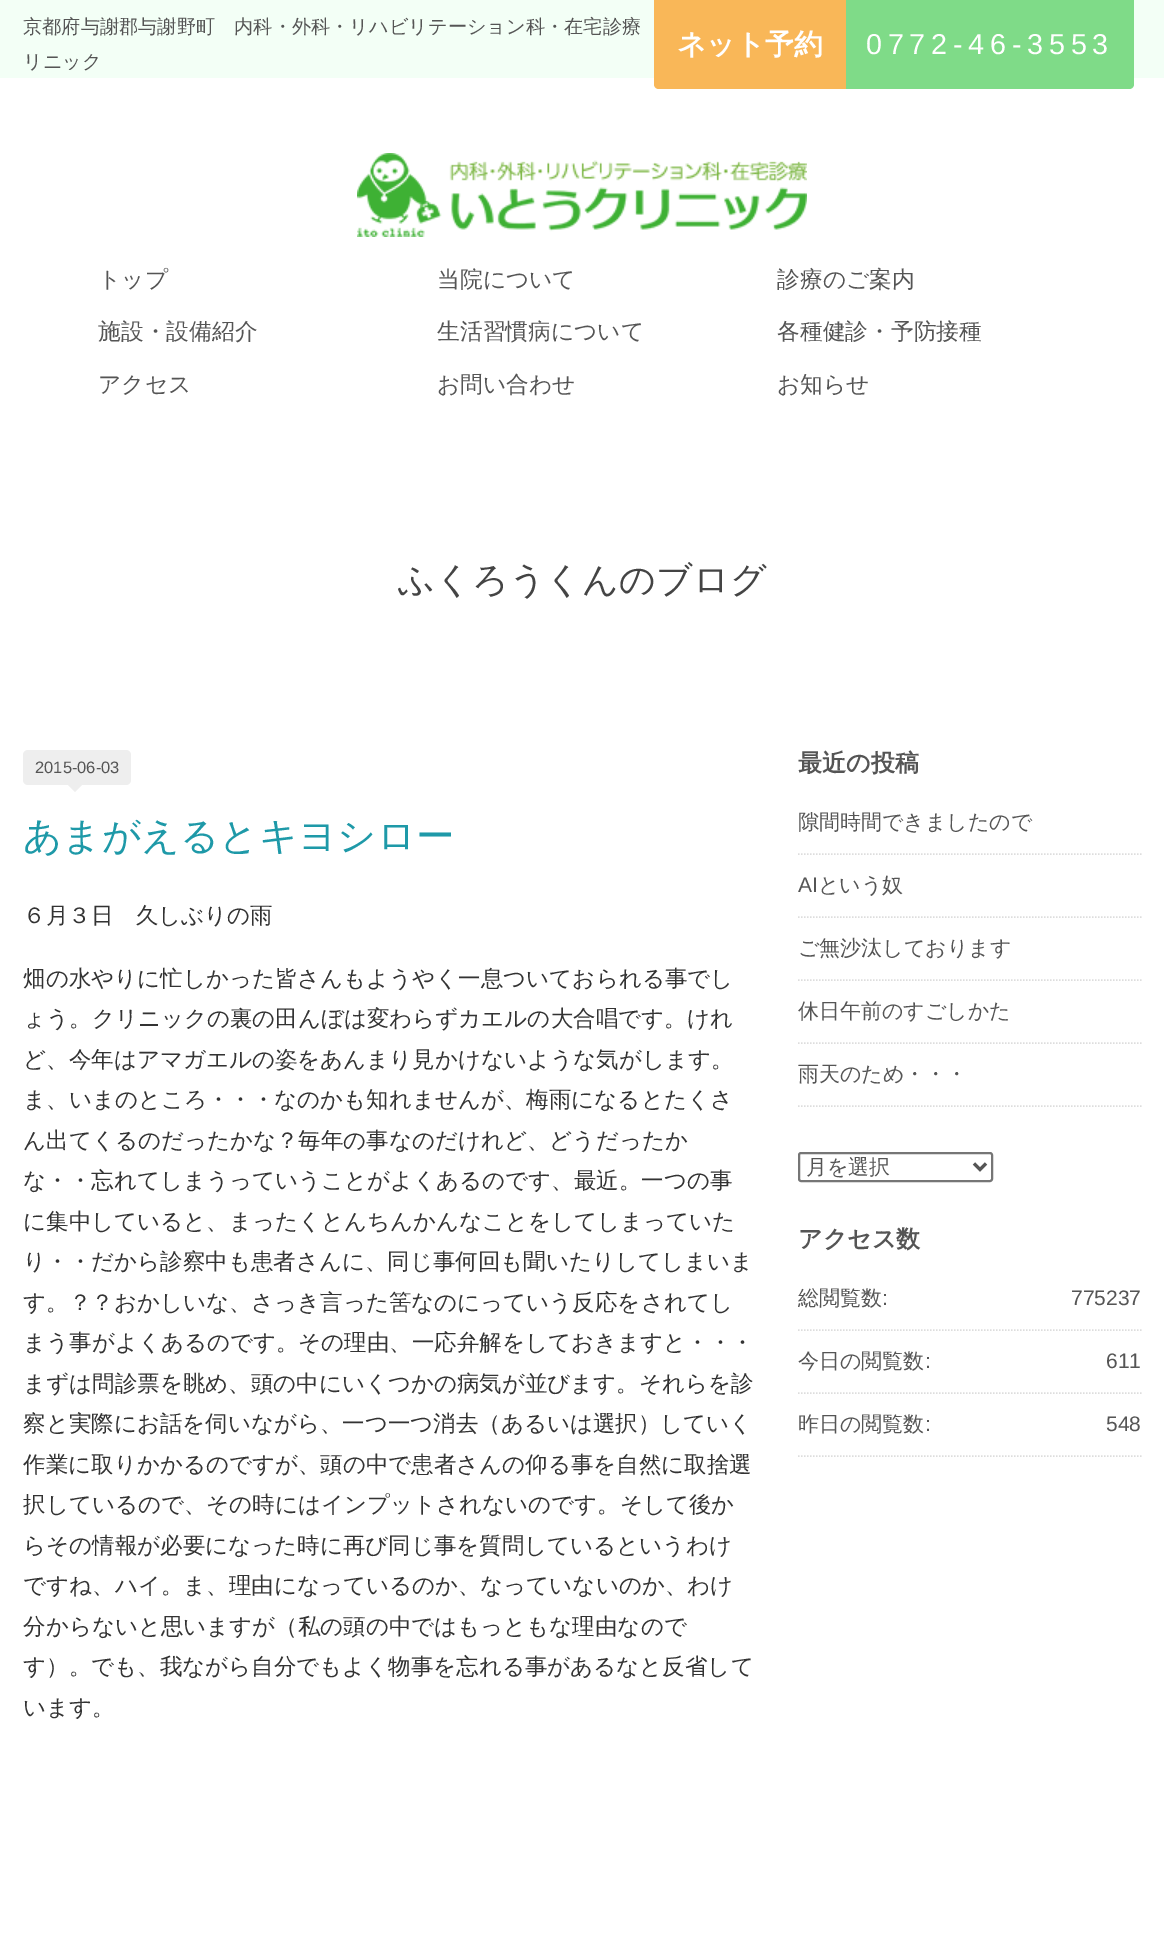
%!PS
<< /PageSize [1164 1960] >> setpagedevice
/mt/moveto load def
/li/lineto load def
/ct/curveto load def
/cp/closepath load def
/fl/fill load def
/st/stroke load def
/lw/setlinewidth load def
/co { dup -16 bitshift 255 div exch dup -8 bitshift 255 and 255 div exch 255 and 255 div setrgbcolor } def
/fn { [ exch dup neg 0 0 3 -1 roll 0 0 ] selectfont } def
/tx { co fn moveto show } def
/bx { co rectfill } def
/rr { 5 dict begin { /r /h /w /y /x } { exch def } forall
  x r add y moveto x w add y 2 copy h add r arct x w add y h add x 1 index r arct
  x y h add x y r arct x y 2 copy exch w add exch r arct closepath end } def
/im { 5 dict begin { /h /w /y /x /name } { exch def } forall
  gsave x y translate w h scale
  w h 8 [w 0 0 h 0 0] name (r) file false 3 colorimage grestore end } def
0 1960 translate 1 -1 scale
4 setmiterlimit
0 0 1164 1960 16#FFFFFF bx
0 0 1164 78 16#F3FFF6 bx
16#F9B758 co
654 0 mt 846 0 li 846 89 li 659 89 li 656 89 654 87 654 84 ct cp fl
16#7FDB88 co
846 0 mt 1134 0 li 1134 84 li 1134 87 1132 89 1129 89 ct 846 89 li cp fl
(media/1.raw) 357 153 450 84 im
16#EEEEEE co
23 750 108 35 5 rr fl
67.5 784.5 mt 82.5 784.5 li 75 792 li cp fl
16#DDDDDD co
1.5 lw
[1.5 1.5] 0 setdash
798 854 mt 1141.5 854 li st
798 917 mt 1141.5 917 li st
798 980 mt 1141.5 980 li st
798 1043 mt 1141.5 1043 li st
798 1106 mt 1141.5 1106 li st
16#767676 co
2 lw
[] 0 setdash
799 1153 193 28 2 rr st
16#555555 co
3 lw
974 1163.5 mt 980 1169.5 li 986 1163.5 li st
16#DDDDDD co
1.5 lw
[1.5 1.5] 0 setdash
798 1330 mt 1141.5 1330 li st
798 1393 mt 1141.5 1393 li st
798 1456 mt 1141.5 1456 li st
(京都府与謝郡与謝野町　内科・外科・リハビリテーション科・在宅診療) 23 33 /WenQuanYiZenHei-Medium 19.2 16#555555 tx
(リニック) 23 68 /WenQuanYiZenHei-Medium 19.2 16#555555 tx
(ネット予約) 677 54 /WenQuanYiZenHei-Bold 28.75 16#FFFFFF tx
/LiberationSans-Regular 28.75 fn
866 54 mt 5.75 0 (0772-46-3553) ashow
(トップ) 98 287 /WenQuanYiZenHei-Medium 22.75 16#555555 tx
(当院について) 437 287 /WenQuanYiZenHei-Medium 22.75 16#555555 tx
(診療のご案内) 777 287 /WenQuanYiZenHei-Medium 22.75 16#555555 tx
(施設・設備紹介) 98 339 /WenQuanYiZenHei-Medium 22.75 16#555555 tx
(生活習慣病について) 437 339 /WenQuanYiZenHei-Medium 22.75 16#555555 tx
(各種健診・予防接種) 777 339 /WenQuanYiZenHei-Medium 22.75 16#555555 tx
(アクセス) 98 392 /WenQuanYiZenHei-Medium 22.75 16#555555 tx
(お問い合わせ) 437 392 /WenQuanYiZenHei-Medium 22.75 16#555555 tx
(お知らせ) 777 392 /WenQuanYiZenHei-Medium 22.75 16#555555 tx
(ふくろうくんのブログ) 398 592 /WenQuanYiZenHei-Medium 36 16#444444 tx
(2015-06-03) 35 773 /LiberationSans-Regular 16.5 16#555555 tx
(あまがえるとキヨシロー) 23 849 /WenQuanYiZenHei-Medium 38.4 16#1E99A8 tx
(６月３日　久しぶりの雨) 23 923 /WenQuanYiZenHei-Medium 22.5 16#333333 tx
(畑の水やりに忙しかった皆さんもようやく一息ついておられる事でし) 23 986 /WenQuanYiZenHei-Medium 22.5 16#333333 tx
(ょう。クリニックの裏の田んぼは変わらずカエルの大合唱です。けれ) 23 1026 /WenQuanYiZenHei-Medium 22.5 16#333333 tx
(ど、今年はアマガエルの姿をあんまり見かけないような気がします。) 23 1067 /WenQuanYiZenHei-Medium 22.5 16#333333 tx
(ま、いまのところ・・・なのかも知れませんが、梅雨になるとたくさ) 23 1107 /WenQuanYiZenHei-Medium 22.5 16#333333 tx
(ん出てくるのだったかな？毎年の事なのだけれど、どうだったか) 23 1148 /WenQuanYiZenHei-Medium 22.5 16#333333 tx
(な・・忘れてしまうっていうことがよくあるのです、最近。一つの事) 23 1188 /WenQuanYiZenHei-Medium 22.5 16#333333 tx
(に集中していると、まったくとんちんかんなことをしてしまっていた) 23 1229 /WenQuanYiZenHei-Medium 22.5 16#333333 tx
(り・・だから診察中も患者さんに、同じ事何回も聞いたりしてしまいま) 23 1269 /WenQuanYiZenHei-Medium 22.5 16#333333 tx
(す。？？おかしいな、さっき言った筈なのにっていう反応をされてし) 23 1310 /WenQuanYiZenHei-Medium 22.5 16#333333 tx
(まう事がよくあるのです。その理由、一応弁解をしておきますと・・・) 23 1350 /WenQuanYiZenHei-Medium 22.5 16#333333 tx
(まずは問診票を眺め、頭の中にいくつかの病気が並びます。それらを診) 23 1391 /WenQuanYiZenHei-Medium 22.5 16#333333 tx
(察と実際にお話を伺いながら、一つ一つ消去（あるいは選択）していく) 23 1431 /WenQuanYiZenHei-Medium 22.5 16#333333 tx
(作業に取りかかるのですが、頭の中で患者さんの仰る事を自然に取捨選) 23 1472 /WenQuanYiZenHei-Medium 22.5 16#333333 tx
(択しているので、その時にはインプットされないのです。そして後か) 23 1512 /WenQuanYiZenHei-Medium 22.5 16#333333 tx
(らその情報が必要になった時に再び同じ事を質問しているというわけ) 23 1553 /WenQuanYiZenHei-Medium 22.5 16#333333 tx
(ですね、ハイ。ま、理由になっているのか、なっていないのか、わけ) 23 1593 /WenQuanYiZenHei-Medium 22.5 16#333333 tx
(分からないと思いますが（私の頭の中ではもっともな理由なので) 23 1634 /WenQuanYiZenHei-Medium 22.5 16#333333 tx
(す）。でも、我ながら自分でもよく物事を忘れる事があるなと反省して) 23 1674 /WenQuanYiZenHei-Medium 22.5 16#333333 tx
(います。) 23 1715 /WenQuanYiZenHei-Medium 22.5 16#333333 tx
(最近の投稿) 798 771 /WenQuanYiZenHei-Bold 24 16#555555 tx
(隙間時間できましたので) 798 829 /WenQuanYiZenHei-Medium 21 16#555555 tx
(AI) 798 892 /LiberationSans-Regular 21 16#555555 tx
(という奴) 818 892 /WenQuanYiZenHei-Medium 21 16#555555 tx
(ご無沙汰しております) 798 955 /WenQuanYiZenHei-Medium 21 16#555555 tx
(休日午前のすごしかた) 798 1018 /WenQuanYiZenHei-Medium 21 16#555555 tx
(雨天のため・・・) 798 1081 /WenQuanYiZenHei-Medium 21 16#555555 tx
(月を選択) 806 1174 /WenQuanYiZenHei-Medium 21 16#555555 tx
(アクセス数) 798 1247 /WenQuanYiZenHei-Bold 24 16#555555 tx
(総閲覧数) 798 1305 /WenQuanYiZenHei-Medium 21 16#555555 tx
(:) 882 1305 /LiberationSans-Regular 21 16#555555 tx
(775237) 1071 1305 /LiberationSans-Regular 21 16#555555 tx
(今日の閲覧数) 798 1368 /WenQuanYiZenHei-Medium 21 16#555555 tx
(:) 925 1368 /LiberationSans-Regular 21 16#555555 tx
(611) 1106 1368 /LiberationSans-Regular 21 16#555555 tx
(昨日の閲覧数) 798 1431 /WenQuanYiZenHei-Medium 21 16#555555 tx
(:) 925 1431 /LiberationSans-Regular 21 16#555555 tx
(548) 1106 1431 /LiberationSans-Regular 21 16#555555 tx
showpage
